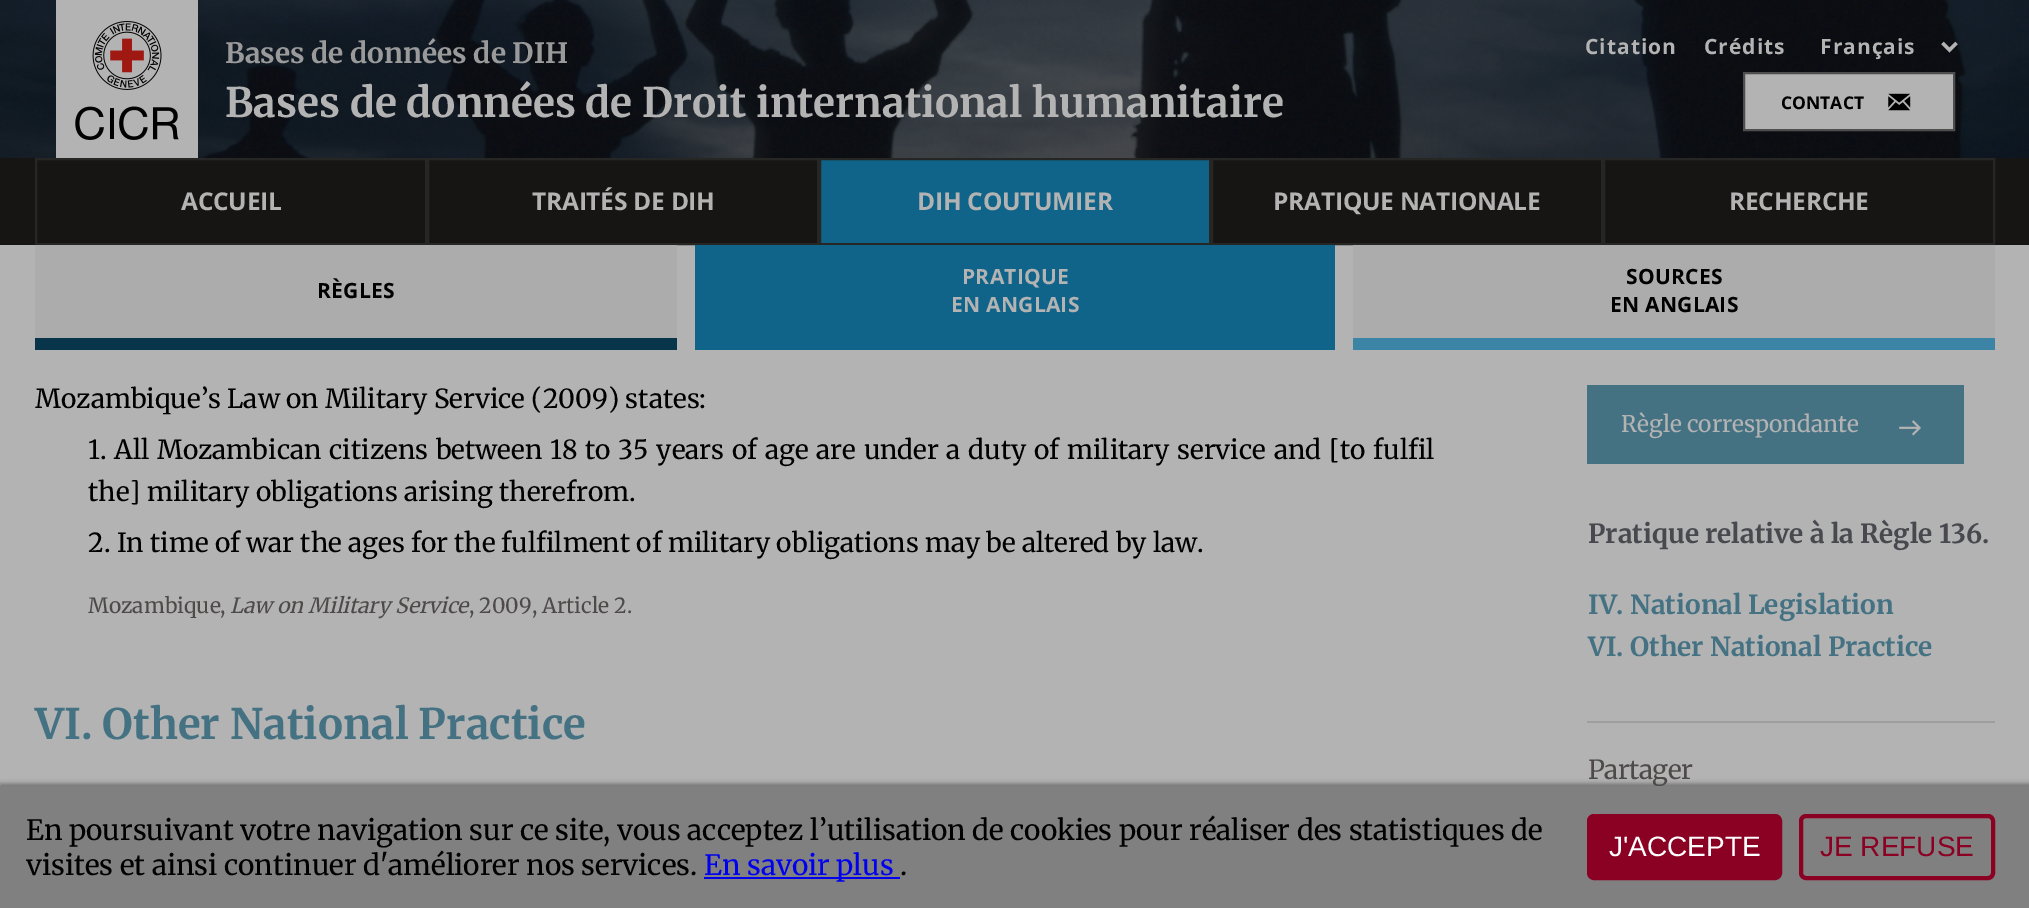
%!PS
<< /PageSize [2029 908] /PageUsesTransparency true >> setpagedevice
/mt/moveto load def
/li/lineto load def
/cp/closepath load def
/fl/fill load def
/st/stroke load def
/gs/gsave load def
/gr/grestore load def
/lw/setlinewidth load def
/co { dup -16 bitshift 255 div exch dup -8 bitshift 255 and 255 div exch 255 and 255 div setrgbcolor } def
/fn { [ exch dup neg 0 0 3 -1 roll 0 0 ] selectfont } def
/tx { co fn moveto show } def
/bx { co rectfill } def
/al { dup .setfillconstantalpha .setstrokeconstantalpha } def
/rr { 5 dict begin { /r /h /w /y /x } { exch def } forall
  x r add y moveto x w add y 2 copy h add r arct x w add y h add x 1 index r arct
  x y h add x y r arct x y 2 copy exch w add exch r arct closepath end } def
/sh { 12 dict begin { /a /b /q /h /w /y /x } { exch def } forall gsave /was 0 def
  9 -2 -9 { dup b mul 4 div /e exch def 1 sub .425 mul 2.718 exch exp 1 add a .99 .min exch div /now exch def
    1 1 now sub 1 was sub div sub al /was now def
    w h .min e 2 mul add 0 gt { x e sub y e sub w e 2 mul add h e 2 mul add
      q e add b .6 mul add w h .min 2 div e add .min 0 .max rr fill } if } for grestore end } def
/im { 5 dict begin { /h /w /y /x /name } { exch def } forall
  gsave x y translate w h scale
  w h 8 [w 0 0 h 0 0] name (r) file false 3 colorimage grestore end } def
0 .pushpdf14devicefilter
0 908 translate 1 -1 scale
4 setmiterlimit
0 0 2029 908 16#B3B3B3 bx
(media/1.raw) 0 0 2029 158 im
56 0 142 158 16#B3B3B3 bx
(media/2.raw) 75 21 104 119 im
3.5 lw
1942.5 43 mt 1949.5 50 li 1956.5 43 li st
1744 73 mt 1954 73 li 1954 130 li 1744 130 li cp gs fl gr
16#4E4E4E co
2 lw
st
(media/3.raw) 1888 93 23 18 im
0 158 2029 87 16#161514 bx
16#262624 co
36 159 390 85 rectstroke
428 159 390 85 rectstroke
16#106389 co
820 159 mt 1210 159 li 1210 244 li 820 244 li cp gs fl gr
16#262624 co
st
1212 159 390 85 rectstroke
1604 159 390 85 rectstroke
35 245 642 93 16#ACACAC bx
35 338 642 12 16#083549 bx
695 245 640 105 16#106389 bx
1353 245 642 93 16#ACACAC bx
1353 338 642 12 16#3B84A5 bx
1587 385 377 79 16#457283 bx
(media/4.raw) 1899 420 22 16 im
1587 721 408 2 16#9E9E9E bx
16#6B6B6B co
0 784 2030 123 0 2.5 1 sh
(Bases de données de DIH) 225 63 /Merriweather-Bold 28 16#9A9A9A tx
(Bases de données de Droit international humanitaire) 225 117 /Merriweather-Bold 40.6 16#B3B3B3 tx
/OpenSans-Bold 21 fn
1585 54 mt 1 0 (Citation) ashow
1704 54 mt 1 0 (Crédits) ashow
1820 54 mt 1 0 (Français) ashow
(CONTACT) 1781 109 /OpenSans-Bold 17.5 16#000000 tx
/OpenSans-Bold 24.5 fn
16#B3B3B3 co
181 210 mt -.25 0 (ACCUEIL) ashow
532 210 mt -.25 0 (TRAITÉS DE DIH) ashow
917 210 mt -.25 0 (DIH COUTUMIER) ashow
1273 210 mt -.25 0 (PRATIQUE NATIONALE) ashow
1729 210 mt -.25 0 (RECHERCHE) ashow
/OpenSans-Bold 21 fn
16#000000 co
317 298 mt .25 0 (RÈGLES) ashow
16#B3B3B3 co
962 284 mt .25 0 (PRATIQUE) ashow
951 312 mt .25 0 (EN ANGLAIS) ashow
16#000000 co
1626 284 mt .25 0 (SOURCES) ashow
1610 312 mt .25 0 (EN ANGLAIS) ashow
(Mozambique’s Law on Military Service \(2009\) states:) 35 408 /Merriweather-Regular 26.25 16#000000 tx
88 459 mt 1.5 0 32 (1. All Mozambican citizens between 18 to 35 years of age are under a duty of military service and [to fulfil) widthshow
(the] military obligations arising therefrom.) 88 501 /Merriweather-Regular 26.25 16#000000 tx
(2. In time of war the ages for the fulfilment of military obligations may be altered by law.) 88 552 /Merriweather-Regular 26.25 16#000000 tx
(Mozambique,) 88 613 /Merriweather-Regular 21 16#4E4A4A tx
(Law on Military Service) 230 613 /Merriweather-Italic 21 16#4E4A4A tx
(, 2009, Article 2.) 469 613 /Merriweather-Regular 21 16#4E4A4A tx
(VI. Other National Practice) 35 739 /Merriweather-Bold 42 16#457283 tx
(Règle correspondante) 1621 432 /Merriweather-Regular 22.75 16#B3B3B3 tx
(Pratique relative à la Règle 136.) 1588 543 /Merriweather-Bold 26.25 16#47494E tx
(IV. National Legislation) 1588 614 /Merriweather-Bold 26.25 16#457283 tx
(VI. Other National Practice) 1588 656 /Merriweather-Bold 26.25 16#457283 tx
/Merriweather-Regular 26.25 fn
16#4E4A4A co
1588 779 mt -.5 0 (Partager) ashow
0 786 2029 122 16#808080 bx
(En poursuivant votre navigation sur ce site, vous acceptez l’utilisation de cookies pour réaliser des statistiques de) 26 840 /Merriweather-Regular 28 16#000000 tx
(visites et ainsi continuer d'améliorer nos services.) 26 875 /Merriweather-Regular 28 16#000000 tx
(.) 900 875 /Merriweather-Regular 28 16#000000 tx
704 877 196 2 16#0000EE bx
(En savoir plus) 704 875 /Merriweather-Regular 28 16#0000EE tx
16#8A0124 co
1589 816 191 62 5 rr gs fl gr
4 lw
st
(J'ACCEPTE) 1609 856 /LiberationSans-Regular 28 16#FFFFFF tx
16#8A0124 co
1801 816 192 62 5 rr st
(JE REFUSE) 1820 856 /LiberationSans-Regular 28 16#8A0124 tx
.poppdf14devicefilter showpage
